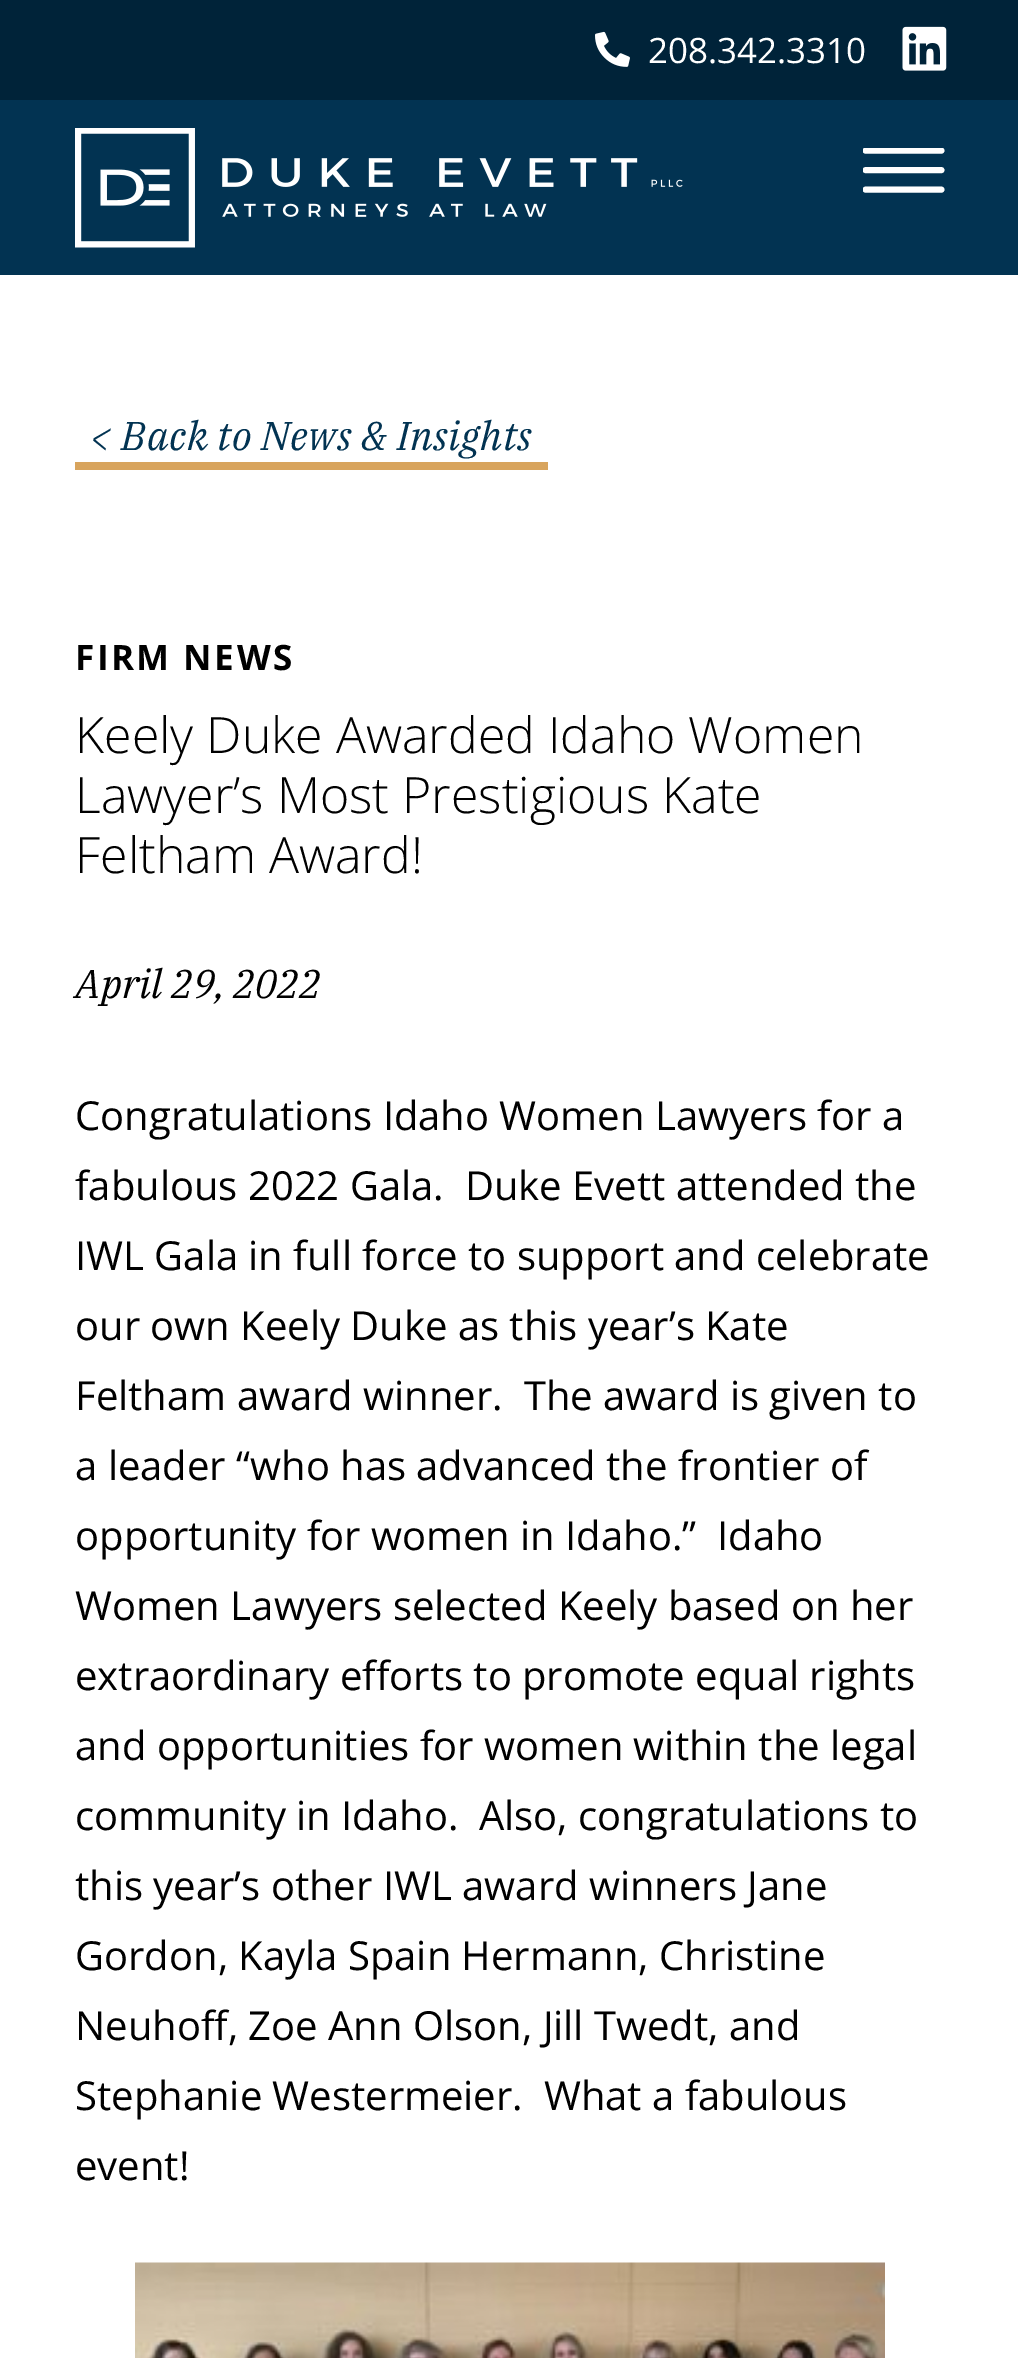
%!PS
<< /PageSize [1018 2358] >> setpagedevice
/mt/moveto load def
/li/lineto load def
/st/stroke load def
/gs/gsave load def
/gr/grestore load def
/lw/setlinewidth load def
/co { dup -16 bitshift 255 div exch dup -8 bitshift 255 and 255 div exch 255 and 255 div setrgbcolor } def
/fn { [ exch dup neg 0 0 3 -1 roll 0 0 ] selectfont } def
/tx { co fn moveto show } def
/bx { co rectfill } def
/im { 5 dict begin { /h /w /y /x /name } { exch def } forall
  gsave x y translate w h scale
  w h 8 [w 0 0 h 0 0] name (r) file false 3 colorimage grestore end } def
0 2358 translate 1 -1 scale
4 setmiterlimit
0 0 1018 2358 16#FFFFFF bx
0 0 1018 100 16#002339 bx
(media/1.raw) 595 31 35 36 im
(media/2.raw) 902 26 45 45 im
0 100 1018 175 16#023352 bx
(media/3.raw) 75 128 608 120 im
gs
863 148 82 45 rectclip
16#FFFFFF co
5.9 lw
1 setlinecap
865.5 150.5 mt 941.5 150.5 li st
865.5 170 mt 941.5 170 li st
865.5 189.5 mt 941.5 189.5 li st
gr
75 462 473 8 16#D8A45D bx
(media/4.raw) 135 2262 750 96 im
(208.342.3310) 648 63 /OpenSans-Regular 35 16#FFFFFF tx
/IBMPlexSerif-Italic 40 fn
16#023352 co
90 450 mt .5 0 (< Back to News & Insights) ashow
/OpenSans-Bold 35 fn
16#000000 co
75 670 mt 2.5 0 (FIRM NEWS) ashow
(Keely Duke Awarded Idaho Women) 75 753 /OpenSans-Light 50 16#000000 tx
(Lawyer’s Most Prestigious Kate) 75 813 /OpenSans-Light 50 16#000000 tx
(Feltham Award!) 75 873 /OpenSans-Light 50 16#000000 tx
(April 29, 2022) 75 998 /IBMPlexSerif-Italic 40 16#000000 tx
(Congratulations Idaho Women Lawyers for a) 75 1130 /OpenSans-Regular 40 16#000000 tx
(fabulous 2022 Gala.  Duke Evett attended the) 75 1200 /OpenSans-Regular 40 16#000000 tx
(IWL Gala in full force to support and celebrate) 75 1270 /OpenSans-Regular 40 16#000000 tx
(our own Keely Duke as this year’s Kate) 75 1340 /OpenSans-Regular 40 16#000000 tx
(Feltham award winner.  The award is given to) 75 1410 /OpenSans-Regular 40 16#000000 tx
(a leader “who has advanced the frontier of) 75 1480 /OpenSans-Regular 40 16#000000 tx
(opportunity for women in Idaho.”  Idaho) 75 1550 /OpenSans-Regular 40 16#000000 tx
(Women Lawyers selected Keely based on her) 75 1620 /OpenSans-Regular 40 16#000000 tx
(extraordinary efforts to promote equal rights) 75 1690 /OpenSans-Regular 40 16#000000 tx
(and opportunities for women within the legal) 75 1760 /OpenSans-Regular 40 16#000000 tx
(community in Idaho.  Also, congratulations to) 75 1830 /OpenSans-Regular 40 16#000000 tx
(this year’s other IWL award winners Jane) 75 1900 /OpenSans-Regular 40 16#000000 tx
(Gordon, Kayla Spain Hermann, Christine) 75 1970 /OpenSans-Regular 40 16#000000 tx
(Neuhoff, Zoe Ann Olson, Jill Twedt, and) 75 2040 /OpenSans-Regular 40 16#000000 tx
(Stephanie Westermeier.  What a fabulous) 75 2110 /OpenSans-Regular 40 16#000000 tx
(event!) 75 2180 /OpenSans-Regular 40 16#000000 tx
showpage
